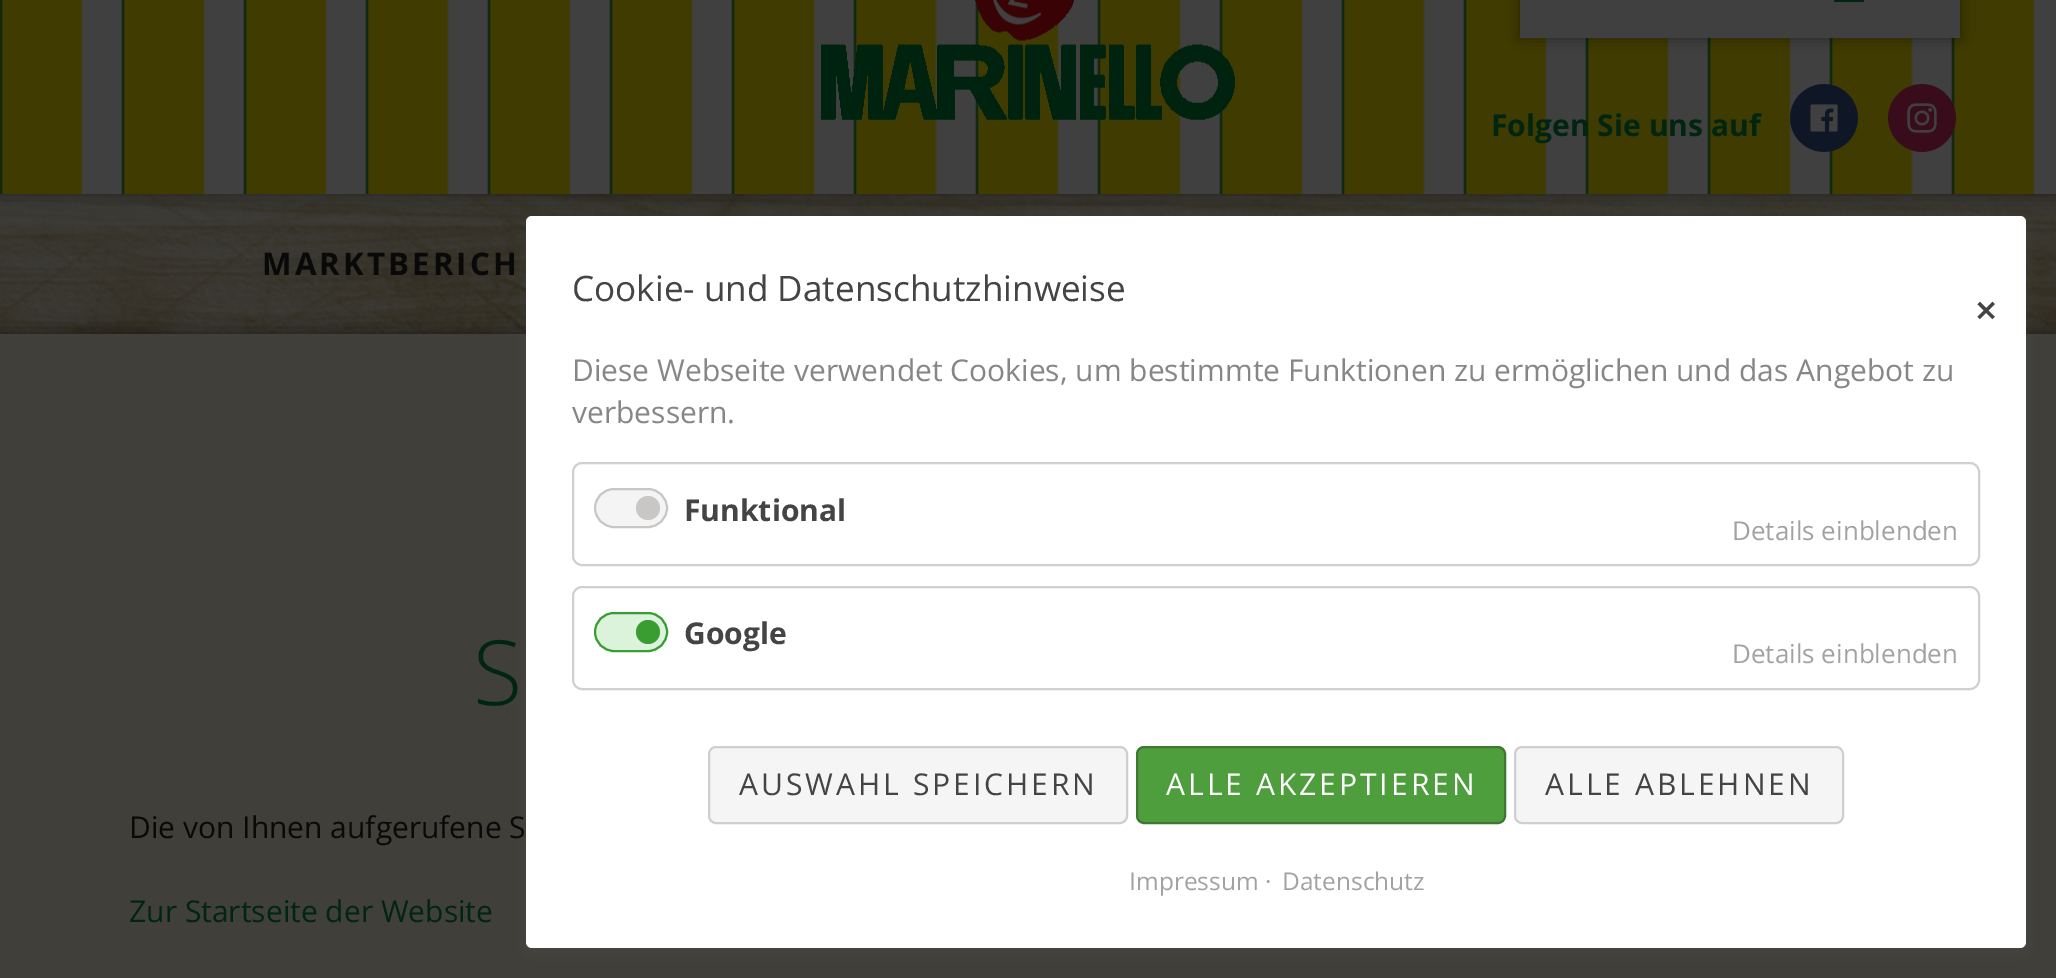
%!PS
<< /PageSize [2056 978] /PageUsesTransparency true >> setpagedevice
/mt/moveto load def
/fl/fill load def
/st/stroke load def
/gs/gsave load def
/gr/grestore load def
/lw/setlinewidth load def
/co { dup -16 bitshift 255 div exch dup -8 bitshift 255 and 255 div exch 255 and 255 div setrgbcolor } def
/fn { [ exch dup neg 0 0 3 -1 roll 0 0 ] selectfont } def
/tx { co fn moveto show } def
/bx { co rectfill } def
/al { dup .setfillconstantalpha .setstrokeconstantalpha } def
/ci { newpath 0 360 arc closepath } def
/rr { 5 dict begin { /r /h /w /y /x } { exch def } forall
  x r add y moveto x w add y 2 copy h add r arct x w add y h add x 1 index r arct
  x y h add x y r arct x y 2 copy exch w add exch r arct closepath end } def
/sh { 12 dict begin { /a /b /q /h /w /y /x } { exch def } forall gsave /was 0 def
  9 -2 -9 { dup b mul 4 div /e exch def 1 sub .425 mul 2.718 exch exp 1 add a .99 .min exch div /now exch def
    1 1 now sub 1 was sub div sub al /was now def
    w h .min e 2 mul add 0 gt { x e sub y e sub w e 2 mul add h e 2 mul add
      q e add b .6 mul add w h .min 2 div e add .min 0 .max rr fill } if } for grestore end } def
/im { 5 dict begin { /h /w /y /x /name } { exch def } forall
  gsave x y translate w h scale
  w h 8 [w 0 0 h 0 0] name (r) file false 3 colorimage grestore end } def
0 .pushpdf14devicefilter
0 978 translate 1 -1 scale
4 setmiterlimit
0 0 2056 978 16#FFFFFF bx
(media/1.raw) 0 194 2056 140 im
16#000000 co
0 -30 2056 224 0 10 .4 sh
0 0 2056 194 16#404040 bx
(media/2.raw) 0 0 2035 194 im
(media/3.raw) 821 0 414 120 im
16#000000 co
1520 -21 440 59 0 7 .4 sh
1520 0 440 38 16#404040 bx
1834 0 30 2 16#002510 bx
(media/4.raw) 1790 84 68 68 im
(media/5.raw) 1888 84 68 68 im
16#000000 co
0 334 2056 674 0 10 .5 sh
0 334 2056 644 16#403F39 bx
16#636363 co
526 220 1500 732 6 8 .2 sh
16#FFFFFF co
526 216 1500 732 6 rr fl
16#D0D0D0 co
2 lw
573 463 1406 102 9 rr st
16#F4F4F4 co
595 489 72 38 19 rr gs fl gr
16#C8C7C5 co
st
648 508 12 ci fl
16#D0D0D0 co
573 587 1406 102 9 rr st
16#DCF3DB co
595 613 72 38 19 rr gs fl gr
16#399D32 co
st
648 632 12 ci fl
16#F5F5F5 co
709 747 418 76 7 rr gs fl gr
16#CFCFCF co
st
16#4E9E3E co
1137 747 368 76 7 rr gs fl gr
16#3E7830 co
st
16#F5F5F5 co
1515 747 328 76 7 rr gs fl gr
16#CFCFCF co
st
(Folgen Sie uns auf) 1491 136 /OpenSans-Bold 30 16#002510 tx
/OpenSans-Bold 31.25 fn
16#090909 co
262 275 mt 3.1 0 (MARKTBERICH) ashow
(S) 473 705 /OpenSans-Light 90 16#002510 tx
(Die von Ihnen aufgerufene S) 129 838 /OpenSans-Regular 30 16#090909 tx
(Zur Startseite der Website) 129 922 /OpenSans-Regular 30 16#002510 tx
(Cookie- und Datenschutzhinweise) 572 301 /OpenSans-Regular 35.1 16#444444 tx
(Diese Webseite verwendet Cookies, um bestimmte Funktionen zu ermöglichen und das Angebot zu) 572 381 /OpenSans-Regular 30 16#868686 tx
(verbessern.) 572 423 /OpenSans-Regular 30 16#868686 tx
/DejaVuSans-Bold 28 fn
16#444444 co
1974 321 mt 3 0 (✕) ashow
(Funktional) 684 521 /OpenSans-Bold 30 16#444444 tx
(Details einblenden) 1732 540 /OpenSans-Regular 26 16#A2A2A2 tx
(Google) 684 644 /OpenSans-Bold 30 16#444444 tx
(Details einblenden) 1732 663 /OpenSans-Regular 26 16#A2A2A2 tx
/OpenSans-Regular 30 fn
16#444444 co
739 795 mt 3 0 (AUSWAHL SPEICHERN) ashow
16#FFFFFF co
1166 795 mt 3 0 (ALLE AKZEPTIEREN) ashow
16#444444 co
1545 795 mt 3 0 (ALLE ABLEHNEN) ashow
(Impressum) 1129 890 /OpenSans-Regular 24.5 16#A2A2A2 tx
(·) 1265 890 /OpenSans-Regular 24.5 16#A2A2A2 tx
(Datenschutz) 1282 890 /OpenSans-Regular 24.5 16#A2A2A2 tx
.poppdf14devicefilter showpage
